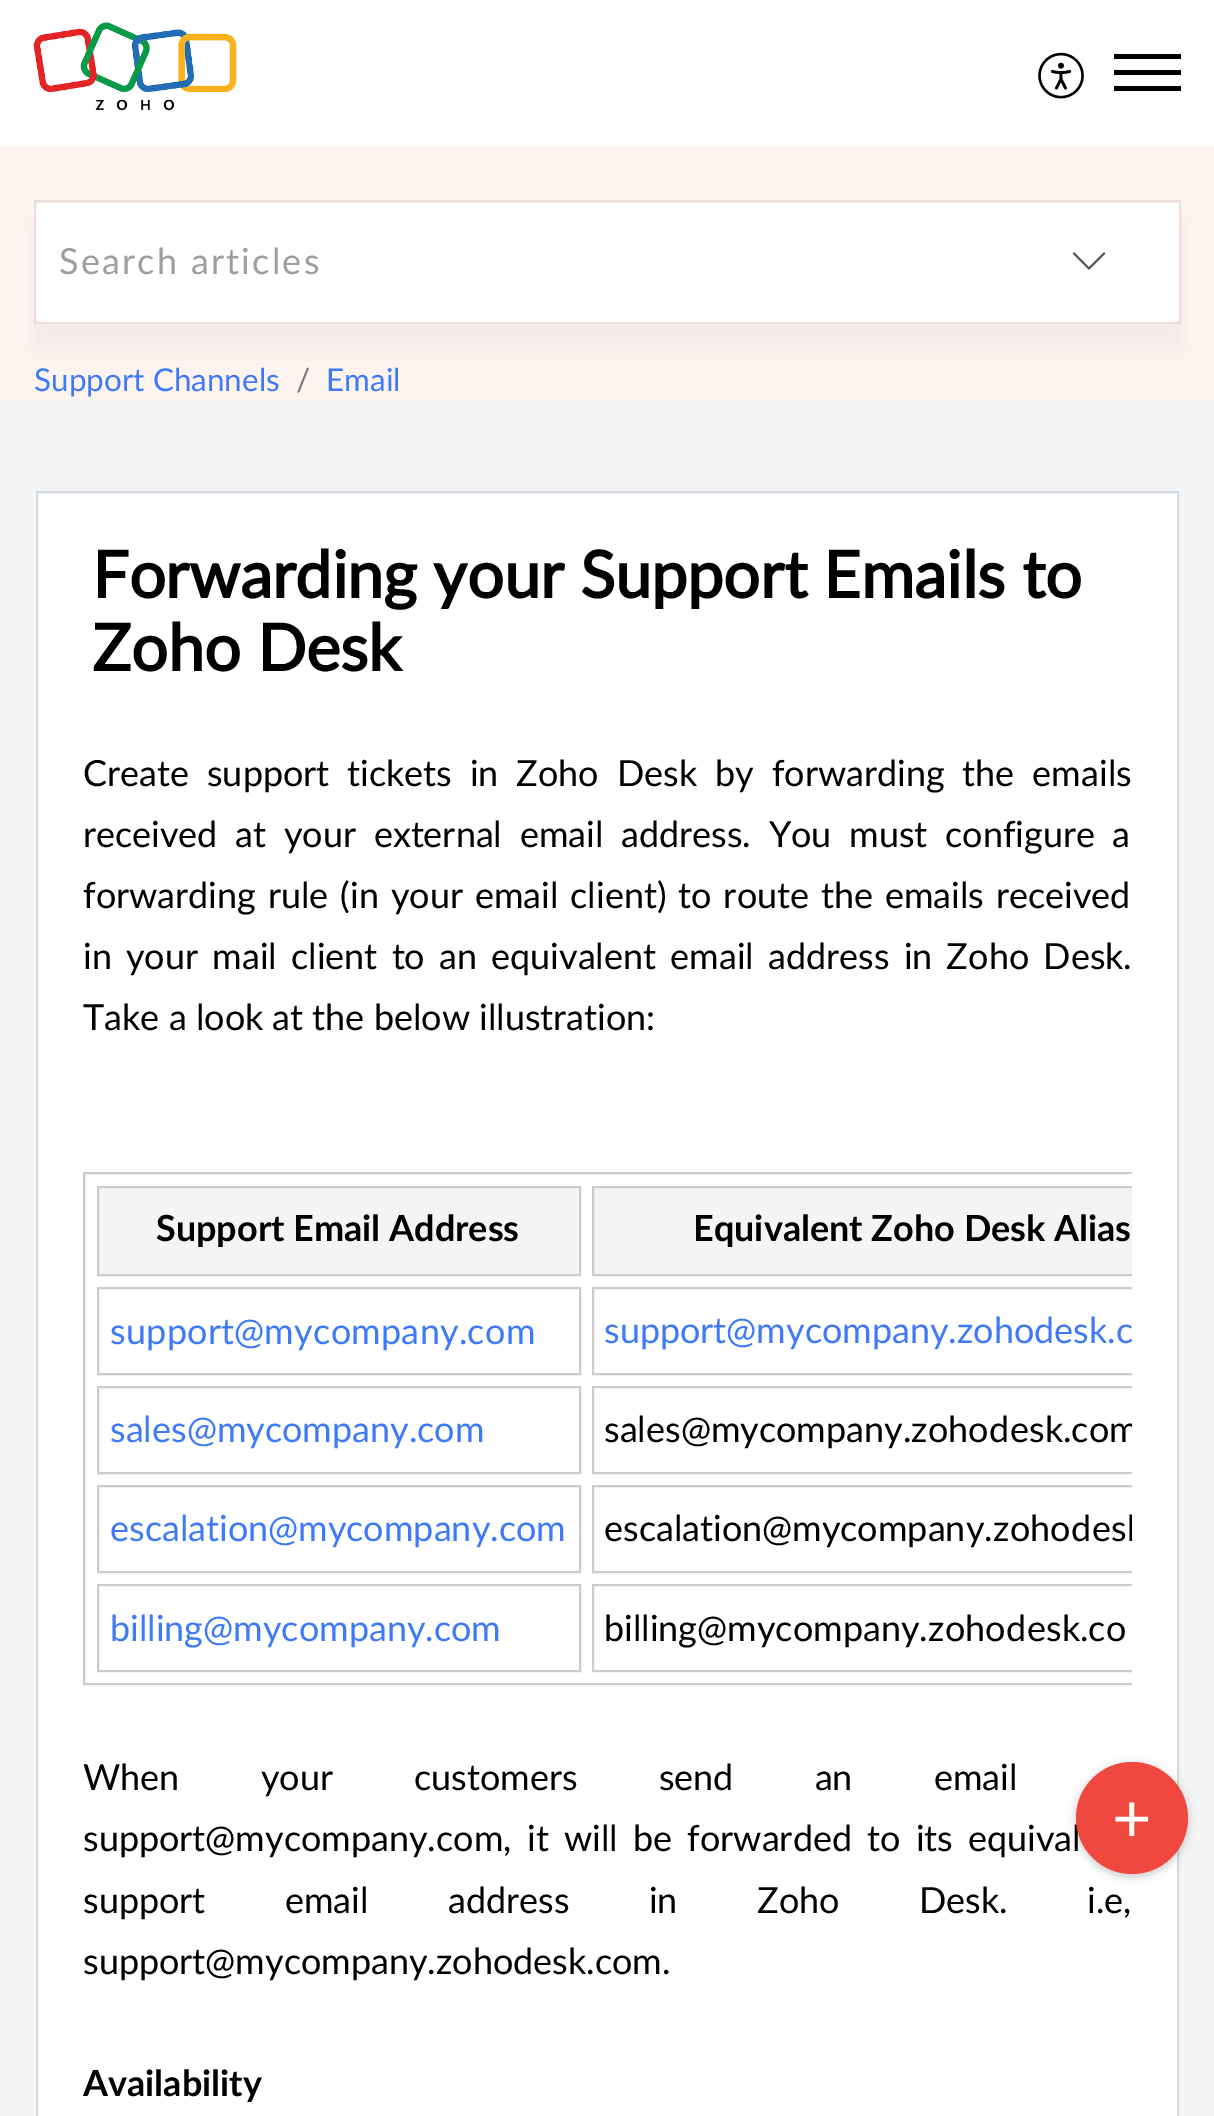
%!PS
<< /PageSize [1214 2116] /PageUsesTransparency true >> setpagedevice
/mt/moveto load def
/li/lineto load def
/cp/closepath load def
/fl/fill load def
/st/stroke load def
/gs/gsave load def
/gr/grestore load def
/lw/setlinewidth load def
/co { dup -16 bitshift 255 div exch dup -8 bitshift 255 and 255 div exch 255 and 255 div setrgbcolor } def
/fn { [ exch dup neg 0 0 3 -1 roll 0 0 ] selectfont } def
/tx { co fn moveto show } def
/bx { co rectfill } def
/al { dup .setfillconstantalpha .setstrokeconstantalpha } def
/ci { newpath 0 360 arc closepath } def
/rr { 5 dict begin { /r /h /w /y /x } { exch def } forall
  x r add y moveto x w add y 2 copy h add r arct x w add y h add x 1 index r arct
  x y h add x y r arct x y 2 copy exch w add exch r arct closepath end } def
/sh { 12 dict begin { /a /b /q /h /w /y /x } { exch def } forall gsave /was 0 def
  9 -2 -9 { dup b mul 4 div /e exch def 1 sub .425 mul 2.718 exch exp 1 add a .99 .min exch div /now exch def
    1 1 now sub 1 was sub div sub al /was now def
    w h .min e 2 mul add 0 gt { x e sub y e sub w e 2 mul add h e 2 mul add
      q e add b .6 mul add w h .min 2 div e add .min 0 .max rr fill } if } for grestore end } def
/im { 5 dict begin { /h /w /y /x /name } { exch def } forall
  gsave x y translate w h scale
  w h 8 [w 0 0 h 0 0] name (r) file false 3 colorimage grestore end } def
0 .pushpdf14devicefilter
0 2116 translate 1 -1 scale
4 setmiterlimit
0 0 1214 2116 16#F3F5F7 bx
0 0 1214 146 16#FFFFFF bx
(media/1.raw) 33 22 204 89 im
(media/2.raw) 1038 52 46 47 im
1114 70 67 5 16#000000 bx
1114 54 67 5 16#000000 bx
1114 86 67 5 16#000000 bx
0 146 1214 255 16#FDF4EF bx
gs
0 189 mt 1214 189 li 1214 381 li 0 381 li cp 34 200 mt 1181 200 li 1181 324 li 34 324 li cp eoclip newpath
16#F0E8E5 co
34 223 1147 124 0 11 .84 sh
gr
16#EADFDB co
2 lw
35 201 1145 122 rectstroke
16#FFFFFF co
36 203 1143 119 7 rr fl
36 203 963 119 7 rr fl
(media/3.raw) 1072 252 34 18 im
37 492 mt 1178 492 li 1178 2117 li 37 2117 li cp gs fl gr
16#D4DADF co
st
16#000000 co
1076 1764 112 113 56 4.5 .2 sh
gs
83 743 1049 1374 rectclip
16#CCCCCC co
84 1173 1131 511 rectstroke
gr
16#F4F4F4 co
98 1187 mt 580 1187 li 580 1275 li 98 1275 li cp gs fl gr
16#CCCCCC co
st
594 1188 538 86 16#F4F4F4 bx
gs
83 743 1049 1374 rectclip
16#CCCCCC co
593 1187 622 88 rectstroke
gr
16#CCCCCC co
98 1288 482 86 rectstroke
gs
83 743 1049 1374 rectclip
593 1288 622 86 rectstroke
gr
98 1387 482 86 rectstroke
gs
83 743 1049 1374 rectclip
593 1387 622 86 rectstroke
gr
98 1486 482 86 rectstroke
gs
83 743 1049 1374 rectclip
593 1486 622 86 rectstroke
gr
98 1585 482 86 rectstroke
gs
83 743 1049 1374 rectclip
593 1585 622 86 rectstroke
gr
/Lato-Regular 36 fn
16#9E9E9E co
59 274 mt 2.25 0 (Search articles) ashow
(Support Channels) 34 391 /Lato-Regular 31.5 16#3E7AF7 tx
(/) 296 391 /Lato-Regular 31.5 16#777777 tx
(Email) 326 391 /Lato-Regular 31.5 16#3E7AF7 tx
(Forwarding your Support Emails to) 92 598 /Lato-Bold 64.75 16#000000 tx
(Zoho Desk) 92 671 /Lato-Bold 64.75 16#000000 tx
/Lato-Regular 36 fn
83 786 mt 8.75 0 32 (Create support tickets in Zoho Desk by forwarding the emails) widthshow
83 847 mt 8.5 0 32 (received at your external email address. You must configure a) widthshow
83 908 mt 2.75 0 32 (forwarding rule \(in your email client\) to route the emails received) widthshow
83 969 mt 5 0 32 (in your mail client to an equivalent email address in Zoho Desk.) widthshow
(Take a look at the below illustration:) 83 1030 /Lato-Regular 36 16#000000 tx
(Support Email Address) 156 1241 /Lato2-Bold 36 16#000000 tx
(Equivalent Zoho Desk Alias) 693 1241 /Lato2-Bold 36 16#000000 tx
/Lato-Regular 36 fn
16#3E7AF7 co
110 1344 mt .25 0 (support@mycompany.com) ashow
(support@mycompany.zohodesk.c) 604 1343 /Lato-Regular 36 16#3E7AF7 tx
(sales@mycompany.com) 110 1442 /Lato-Regular 36 16#3E7AF7 tx
(sales@mycompany.) 604 1442 /Lato-Regular 36 16#000000 tx
911 1442 mt .25 0 (zohodesk) ashow
gs
83 743 1049 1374 rectclip
(.com) 1063 1442 /Lato-Regular 36 16#000000 tx
gr
(escalation@mycompany.com) 110 1541 /Lato-Regular 36 16#3E7AF7 tx
(escalation@mycompany.) 604 1541 /Lato-Regular 36 16#000000 tx
gs
83 743 1049 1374 rectclip
993 1541 mt .25 0 (zohodesk) ashow
gr
(billing@mycompany.com) 110 1641 /Lato-Regular 36 16#3E7AF7 tx
(billing@mycompany.) 604 1641 /Lato-Regular 36 16#000000 tx
928 1641 mt .25 0 (zohodesk) ashow
(.co) 1080 1641 /Lato-Regular 36 16#000000 tx
83 1790 mt 72 0 32 (When your customers send an email) widthshow
(support@mycompany.com,) 83 1851 /Lato-Regular 36 16#000000 tx
527 1851 mt 6 0 32 (it will be forwarded to its equival) widthshow
16#F0483E co
1132 1818 56 ci fl
(+) 1112 1842 /Lato-Regular 68 16#FFFFFF tx
/Lato-Regular 36 fn
16#000000 co
83 1913 mt 70.25 0 32 (support email address in Zoho Desk. i.e,) widthshow
(support@mycompany.zohodesk.com.) 83 1974 /Lato-Regular 36 16#000000 tx
(Availability) 83 2096 /Lato2-Bold 36 16#000000 tx
.poppdf14devicefilter showpage
